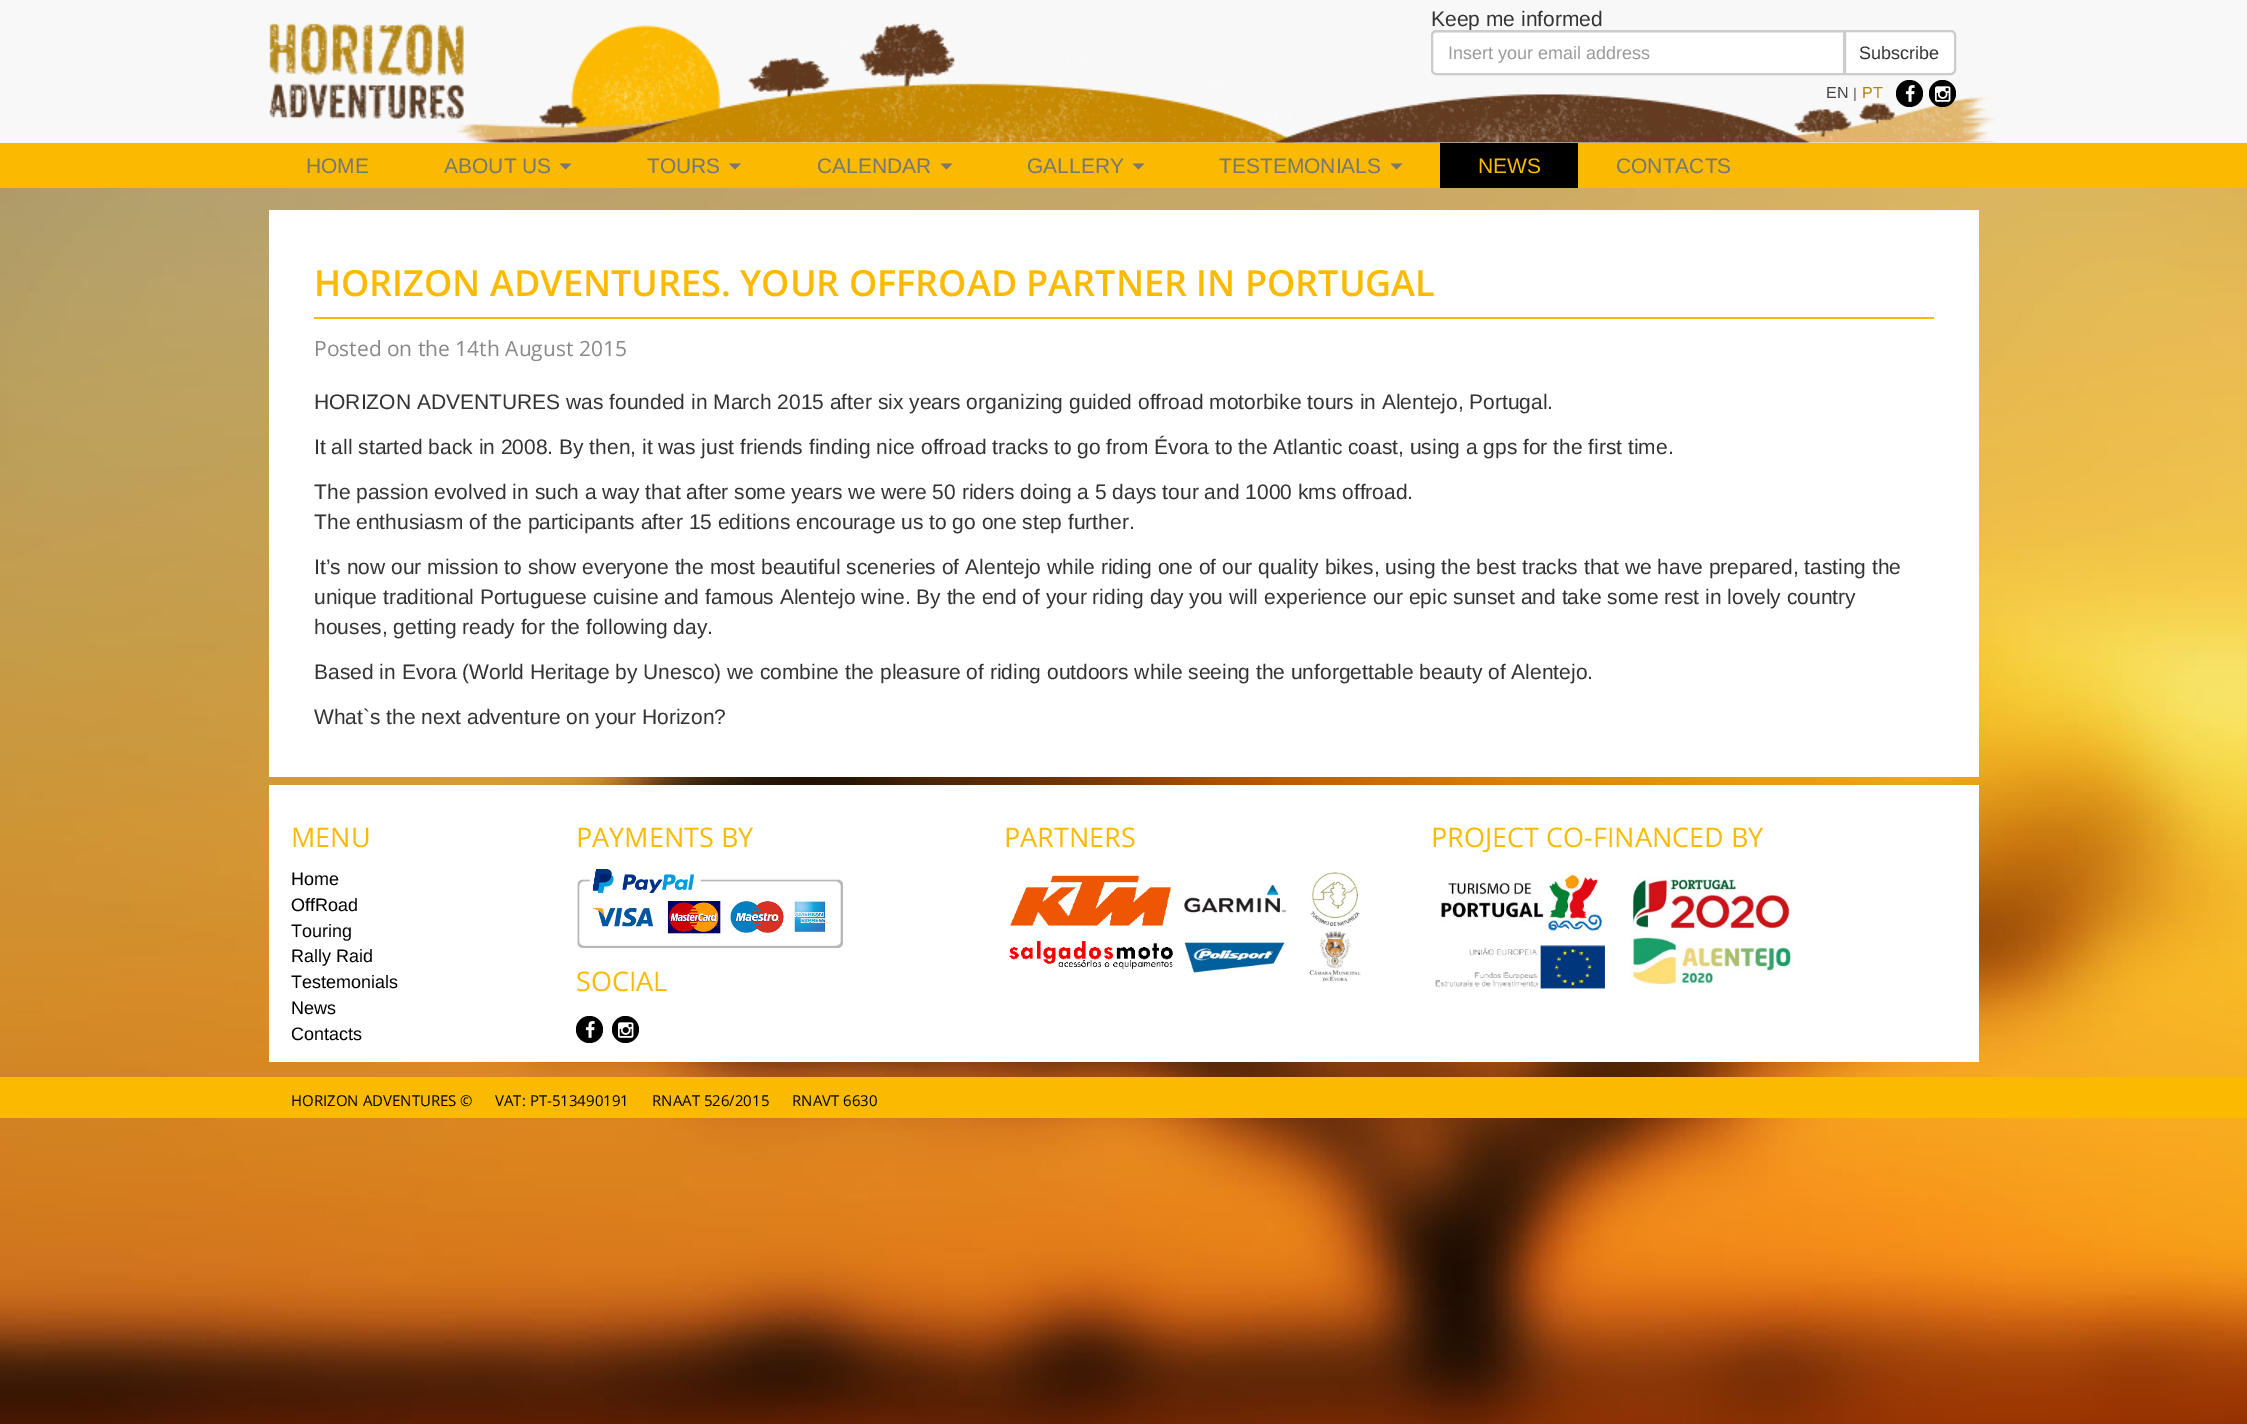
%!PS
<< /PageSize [2247 1424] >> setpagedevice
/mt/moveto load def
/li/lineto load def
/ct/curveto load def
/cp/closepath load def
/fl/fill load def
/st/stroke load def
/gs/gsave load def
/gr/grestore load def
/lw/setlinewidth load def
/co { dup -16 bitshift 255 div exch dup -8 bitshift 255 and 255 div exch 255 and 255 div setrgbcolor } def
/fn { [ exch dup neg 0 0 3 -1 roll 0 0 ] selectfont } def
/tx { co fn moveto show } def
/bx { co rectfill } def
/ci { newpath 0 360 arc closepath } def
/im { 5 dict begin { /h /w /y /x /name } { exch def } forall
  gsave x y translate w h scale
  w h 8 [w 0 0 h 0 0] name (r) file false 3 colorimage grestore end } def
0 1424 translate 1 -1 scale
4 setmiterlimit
0 0 2247 1424 16#FFFFFF bx
(media/1.raw) 0 188 2247 1236 im
0 0 2247 143 16#F8F8F8 bx
(media/3.raw) 456 23 840 120 im
(media/2.raw) 269 23 195 96 im
16#FFFFFF co
1845 31 mt 1951 31 li 1953 31 1955 33 1955 35 ct 1955 70 li 1955 72 1953 74 1951 74 ct 1845 74 li cp gs fl gr
16#CCCCCC co
2 lw
st
(media/4.raw) 1260 94 738 49 im
16#000000 co
1909.5 93.5 13.5 ci fl
(media/5.raw) 1905 85 10 17 im
1942.5 93.5 13.5 ci fl
(media/6.raw) 1935 86 16 16 im
0 143 2247 45 16#FBBA00 bx
16#777777 co
559.5 163.5 mt 571.5 163.5 li 565.5 169.5 li cp fl
729 163.5 mt 741 163.5 li 735 169.5 li cp fl
940.5 163.5 mt 952.5 163.5 li 946.5 169.5 li cp fl
1132.5 163.5 mt 1144.5 163.5 li 1138.5 169.5 li cp fl
1390.5 163.5 mt 1402.5 163.5 li 1396.5 169.5 li cp fl
1440 143 138 45 16#000000 bx
269 210 1710 567 16#FFFFFF bx
314 317 1620 2 16#FBBA00 bx
269 785 1710 277 16#FFFFFF bx
(media/7.raw) 577 869 266 79 im
16#000000 co
589.5 1029.5 13.5 ci fl
(media/5.raw) 585 1021 10 17 im
625.5 1029.5 13.5 ci fl
(media/6.raw) 618 1022 16 16 im
(media/8.raw) 1009 872 352 110 im
(media/9.raw) 1435 874 359 115 im
0 1077 2247 41 16#FBBA00 bx
(Keep me informed) 1431 26 /LiberationSans-Regular 21 16#333333 tx
16#FFFFFF co
1436 30 mt 1845 30 li 1845 75 li 1436 75 li 1433 75 1431 73 1431 70 ct 1431 35 li 1431 32 1433 30 1436 30 ct cp fl
16#ECECEC co
1436 33 mt 1844 33 li 1844 32 li 1436 32 li 1434 33 li 1433 34 li cp fl
16#CCCCCC co
1436 31 mt 1844 31 li 1844 74 li 1436 74 li 1434 74 1432 72 1432 70 ct 1432 35 li 1432 33 1434 31 1436 31 ct cp st
(Insert your email address) 1448 59 /LiberationSans-Regular 18 16#999999 tx
(Subscribe) 1859 59 /LiberationSans-Regular 18 16#333333 tx
(EN) 1826 98 /LiberationSans-Regular 16 16#444444 tx
(|) 1853 98 /LiberationSans-Bold 14 16#888888 tx
(PT) 1862 98 /LiberationSans-Regular 16 16#AF8100 tx
(HOME) 306 173 /LiberationSans-Regular 21 16#777777 tx
(ABOUT US) 444 173 /LiberationSans-Regular 21 16#777777 tx
(TOURS) 647 173 /LiberationSans-Regular 21 16#777777 tx
(CALENDAR) 817 173 /LiberationSans-Regular 21 16#777777 tx
(GALLERY) 1027 173 /LiberationSans-Regular 21 16#777777 tx
(TESTEMONIALS) 1219 173 /LiberationSans-Regular 21 16#777777 tx
(NEWS) 1478 173 /LiberationSans-Regular 21 16#FBBA00 tx
(CONTACTS) 1616 173 /LiberationSans-Regular 21 16#777777 tx
(HORIZON ADVENTURES. YOUR OFFROAD PARTNER IN PORTUGAL) 314 296 /OpenSans-SemiBold 36 16#FBBA00 tx
(Posted on the 14th August 2015) 314 356 /OpenSans-Regular 21 16#888888 tx
(HORIZON ADVENTURES was founded in March 2015 after six years organizing guided offroad motorbike tours in Alentejo, Portugal.) 314 409 /LiberationSans-Regular 21 16#333333 tx
(It all started back in 2008. By then, it was just friends finding nice offroad tracks to go from Évora to the Atlantic coast, using a gps for the first time.) 314 454 /LiberationSans-Regular 21 16#333333 tx
(The passion evolved in such a way that after some years we were 50 riders doing a 5 days tour and 1000 kms offroad.) 314 499 /LiberationSans-Regular 21 16#333333 tx
(The enthusiasm of the participants after 15 editions encourage us to go one step further.) 314 529 /LiberationSans-Regular 21 16#333333 tx
(It’s now our mission to show everyone the most beautiful sceneries of Alentejo while riding one of our quality bikes, using the best tracks that we have prepared, tasting the) 314 574 /LiberationSans-Regular 21 16#333333 tx
(unique traditional Portuguese cuisine and famous Alentejo wine. By the end of your riding day you will experience our epic sunset and take some rest in lovely country) 314 604 /LiberationSans-Regular 21 16#333333 tx
(houses, getting ready for the following day.) 314 634 /LiberationSans-Regular 21 16#333333 tx
(Based in Evora \(World Heritage by Unesco\) we combine the pleasure of riding outdoors while seeing the unforgettable beauty of Alentejo.) 314 679 /LiberationSans-Regular 21 16#333333 tx
(What`s the next adventure on your Horizon?) 314 724 /LiberationSans-Regular 21 16#333333 tx
(MENU) 291 847 /OpenSans-Regular 27 16#FBBA00 tx
(Home) 291 885 /LiberationSans-Regular 18 16#000000 tx
(OffRoad) 291 911 /LiberationSans-Regular 18 16#000000 tx
(Touring) 291 937 /LiberationSans-Regular 18 16#000000 tx
(Rally Raid) 291 962 /LiberationSans-Regular 18 16#000000 tx
(Testemonials) 291 988 /LiberationSans-Regular 18 16#000000 tx
(News) 291 1014 /LiberationSans-Regular 18 16#000000 tx
(Contacts) 291 1040 /LiberationSans-Regular 18 16#000000 tx
(PAYMENTS BY) 576 847 /OpenSans-Regular 27 16#FBBA00 tx
(SOCIAL) 576 991 /OpenSans-Regular 27 16#FBBA00 tx
(PARTNERS) 1004 847 /OpenSans-Regular 27 16#FBBA00 tx
(PROJECT CO-FINANCED BY) 1431 847 /OpenSans-Regular 27 16#FBBA00 tx
(HORIZON ADVENTURES ©) 291 1106 /OpenSans-Regular 15 16#000000 tx
(VAT: PT-513490191) 495 1106 /OpenSans-Regular 15 16#000000 tx
(RNAAT 526/2015) 652 1106 /OpenSans-Regular 15 16#000000 tx
(RNAVT 6630) 792 1106 /OpenSans-Regular 15 16#000000 tx
showpage
